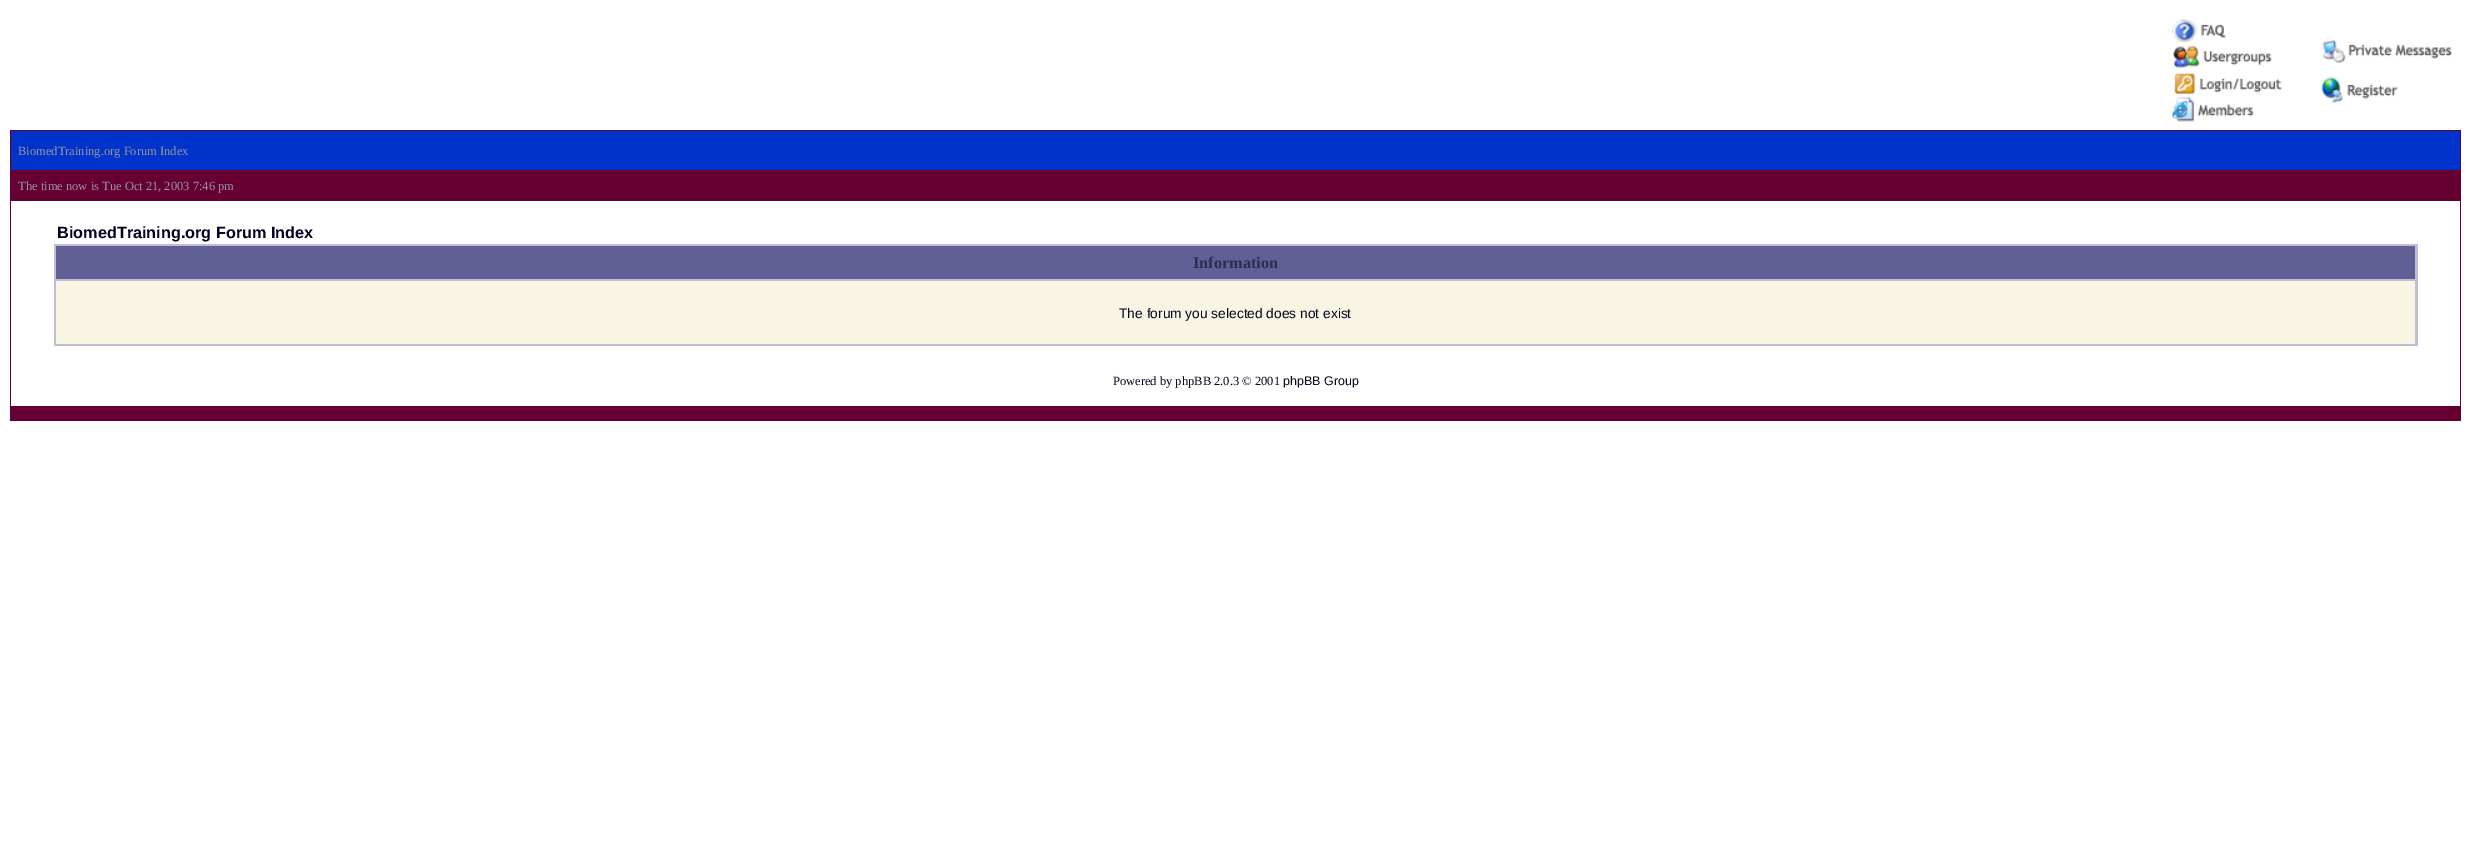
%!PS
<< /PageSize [2471 862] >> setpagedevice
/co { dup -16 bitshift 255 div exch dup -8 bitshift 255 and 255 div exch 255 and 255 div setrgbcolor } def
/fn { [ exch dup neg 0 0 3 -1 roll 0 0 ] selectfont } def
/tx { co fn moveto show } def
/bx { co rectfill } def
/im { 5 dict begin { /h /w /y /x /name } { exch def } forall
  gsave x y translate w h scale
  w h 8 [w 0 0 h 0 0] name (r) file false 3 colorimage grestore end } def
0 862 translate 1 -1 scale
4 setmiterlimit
0 0 2471 862 16#FFFFFF bx
(media/1.raw) 2171 18 56 25 im
(media/2.raw) 2173 45 99 24 im
(media/3.raw) 2174 72 108 22 im
(media/4.raw) 2172 97 82 25 im
(media/5.raw) 2322 40 130 23 im
(media/6.raw) 2321 77 77 26 im
10 130 2451 291 16#660033 bx
11 131 2449 39 16#0033CC bx
11 201 2449 205 16#FFFFFF bx
54 244 2364 102 16#BEBED4 bx
56 246 2359 33 16#606096 bx
56 281 2359 63 16#F8F6E3 bx
(BiomedTraining.org Forum Index) 18 155 /LiberationSerif-Regular 12.5 16#999999 tx
(The time now is Tue Oct 21, 2003 7:46 pm) 18 190 /LiberationSerif-Regular 12.5 16#999999 tx
(BiomedTraining.org Forum Index) 57 238 /LiberationSans-Bold 16.25 16#000020 tx
(Information) 1193 268 /LiberationSerif-Bold 16.25 16#2C2C51 tx
(The forum you selected does not exist) 1119 318 /LiberationSans-Regular 13.75 16#000020 tx
(Powered by phpBB 2.0.3 © 2001) 1113 385 /LiberationSerif-Regular 12.5 16#000020 tx
(phpBB Group) 1283 385 /LiberationSans-Regular 12.5 16#000020 tx
showpage
